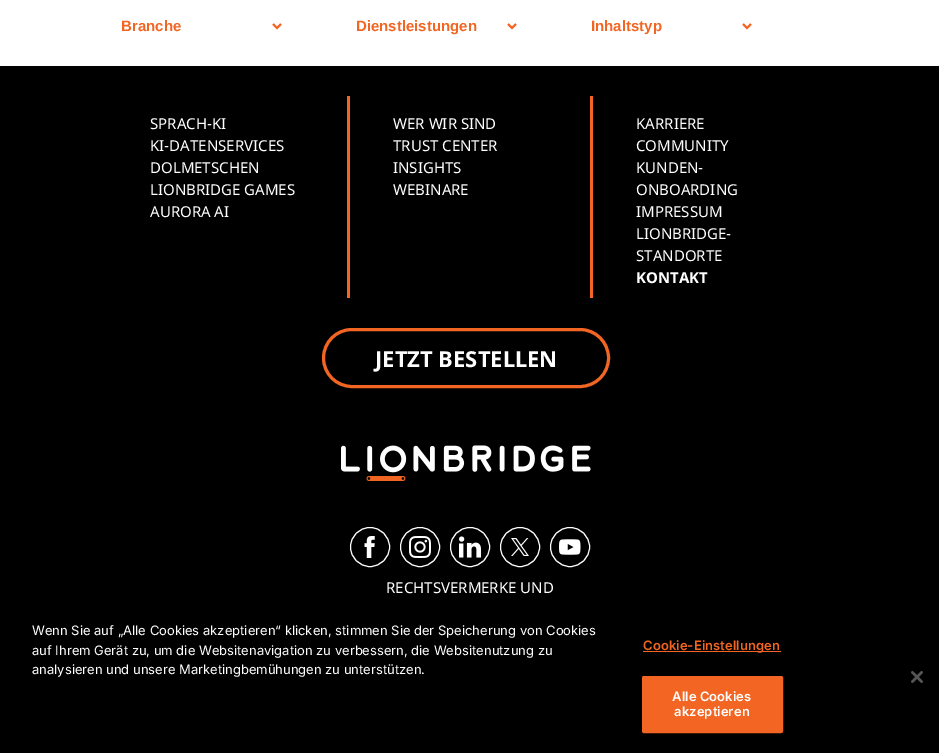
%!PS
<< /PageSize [939 753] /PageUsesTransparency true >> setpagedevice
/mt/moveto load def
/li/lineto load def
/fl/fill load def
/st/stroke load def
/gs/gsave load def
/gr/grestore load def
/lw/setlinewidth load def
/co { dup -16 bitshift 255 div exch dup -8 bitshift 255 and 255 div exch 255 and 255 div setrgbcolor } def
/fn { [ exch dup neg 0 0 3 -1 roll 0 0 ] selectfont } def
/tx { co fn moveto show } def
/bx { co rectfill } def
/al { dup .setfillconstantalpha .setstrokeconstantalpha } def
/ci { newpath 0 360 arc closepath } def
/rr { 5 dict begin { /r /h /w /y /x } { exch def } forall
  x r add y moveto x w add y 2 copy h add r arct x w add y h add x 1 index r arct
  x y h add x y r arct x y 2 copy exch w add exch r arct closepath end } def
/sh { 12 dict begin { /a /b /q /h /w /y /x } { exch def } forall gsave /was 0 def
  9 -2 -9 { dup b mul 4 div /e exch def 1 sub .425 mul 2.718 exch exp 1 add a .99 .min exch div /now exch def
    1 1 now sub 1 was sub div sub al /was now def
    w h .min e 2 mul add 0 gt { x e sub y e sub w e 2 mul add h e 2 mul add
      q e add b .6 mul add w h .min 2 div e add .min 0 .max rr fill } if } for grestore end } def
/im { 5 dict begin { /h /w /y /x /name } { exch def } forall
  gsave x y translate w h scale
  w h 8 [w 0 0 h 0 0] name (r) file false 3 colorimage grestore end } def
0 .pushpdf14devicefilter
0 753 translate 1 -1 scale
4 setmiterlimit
0 0 939 753 16#FFFFFF bx
16#F26522 co
2 lw
273 24 mt 277 28 li 281 24 li st
508 24 mt 512 28 li 516 24 li st
743 24 mt 747 28 li 751 24 li st
0 66 939 535 16#000000 bx
347 96 3 202 16#F26522 bx
590 96 3 202 16#F26522 bx
3 lw
323.5 329.5 285 57 28.5 rr st
(media/1.raw) 341 445 250 36 im
16#FFFFFF co
1 lw
370 547 19.5 ci st
(media/2.raw) 364 536 11 22 im
420 547 19.5 ci st
(media/3.raw) 409 536 22 22 im
470 547 19.5 ci st
(media/4.raw) 459 536 22 22 im
520 547 19.5 ci st
(media/5.raw) 511 538 18 18 im
570 547 19.5 ci st
(media/6.raw) 559 539 22 16 im
16#000000 co
0 601 939 152 0 9 .2 sh
0 601 939 152 16#000000 bx
643 651 138 1 16#F26522 bx
642.5 676.5 140 56 1.5 rr gs fl gr
st
(media/7.raw) 911 671 12 12 im
(Branche) 121 31 /LiberationSans-Bold 15 16#F26522 tx
(Dienstleistungen) 356 31 /LiberationSans-Bold 15 16#F26522 tx
(Inhaltstyp) 591 31 /LiberationSans-Bold 15 16#F26522 tx
(SPRACH-KI) 150 129 /NotoSans-Regular 15 16#FFFFFF tx
(KI-DATENSERVICES) 150 151 /NotoSans-Regular 15 16#FFFFFF tx
(DOLMETSCHEN) 150 173 /NotoSans-Regular 15 16#FFFFFF tx
(LIONBRIDGE GAMES) 150 195 /NotoSans-Regular 15 16#FFFFFF tx
(AURORA AI) 150 217 /NotoSans-Regular 15 16#FFFFFF tx
(WER WIR SIND) 393 129 /NotoSans-Regular 15 16#FFFFFF tx
(TRUST CENTER) 393 151 /NotoSans-Regular 15 16#FFFFFF tx
(INSIGHTS) 393 173 /NotoSans-Regular 15 16#FFFFFF tx
(WEBINARE) 393 195 /NotoSans-Regular 15 16#FFFFFF tx
(KARRIERE) 636 129 /NotoSans-Regular 15 16#FFFFFF tx
(COMMUNITY) 636 151 /NotoSans-Regular 15 16#FFFFFF tx
(KUNDEN-) 636 173 /NotoSans-Regular 15 16#FFFFFF tx
(ONBOARDING) 636 195 /NotoSans-Regular 15 16#FFFFFF tx
(IMPRESSUM) 636 217 /NotoSans-Regular 15 16#FFFFFF tx
(LIONBRIDGE-) 636 239 /NotoSans-Regular 15 16#FFFFFF tx
(STANDORTE) 636 261 /NotoSans-Regular 15 16#FFFFFF tx
(KONTAKT) 636 283 /NotoSans-Bold 15 16#FFFFFF tx
(JETZT BESTELLEN) 375 367 /NotoSans-Bold 22 16#FFFFFF tx
(RECHTSVERMERKE UND) 386 593 /NotoSans-Regular 15 16#FFFFFF tx
(Wenn Sie auf „Alle Cookies akzeptieren“ klicken, stimmen Sie der Speicherung von Cookies) 32 635 /Inter-Regular 13 16#FFFFFF tx
(auf Ihrem Gerät zu, um die Websitenavigation zu verbessern, die Websitenutzung zu) 32 655 /Inter-Regular 13 16#FFFFFF tx
(analysieren und unsere Marketingbemühungen zu unterstützen.) 32 674 /Inter-Regular 13 16#FFFFFF tx
/Inter-SemiBold 13 fn
16#F26522 co
643 650 mt .1 0 (Cookie-Einstellungen) ashow
16#FFFFFF co
672 701 mt .1 0 (Alle Cookies) ashow
674 716 mt .1 0 (akzeptieren) ashow
.poppdf14devicefilter showpage
